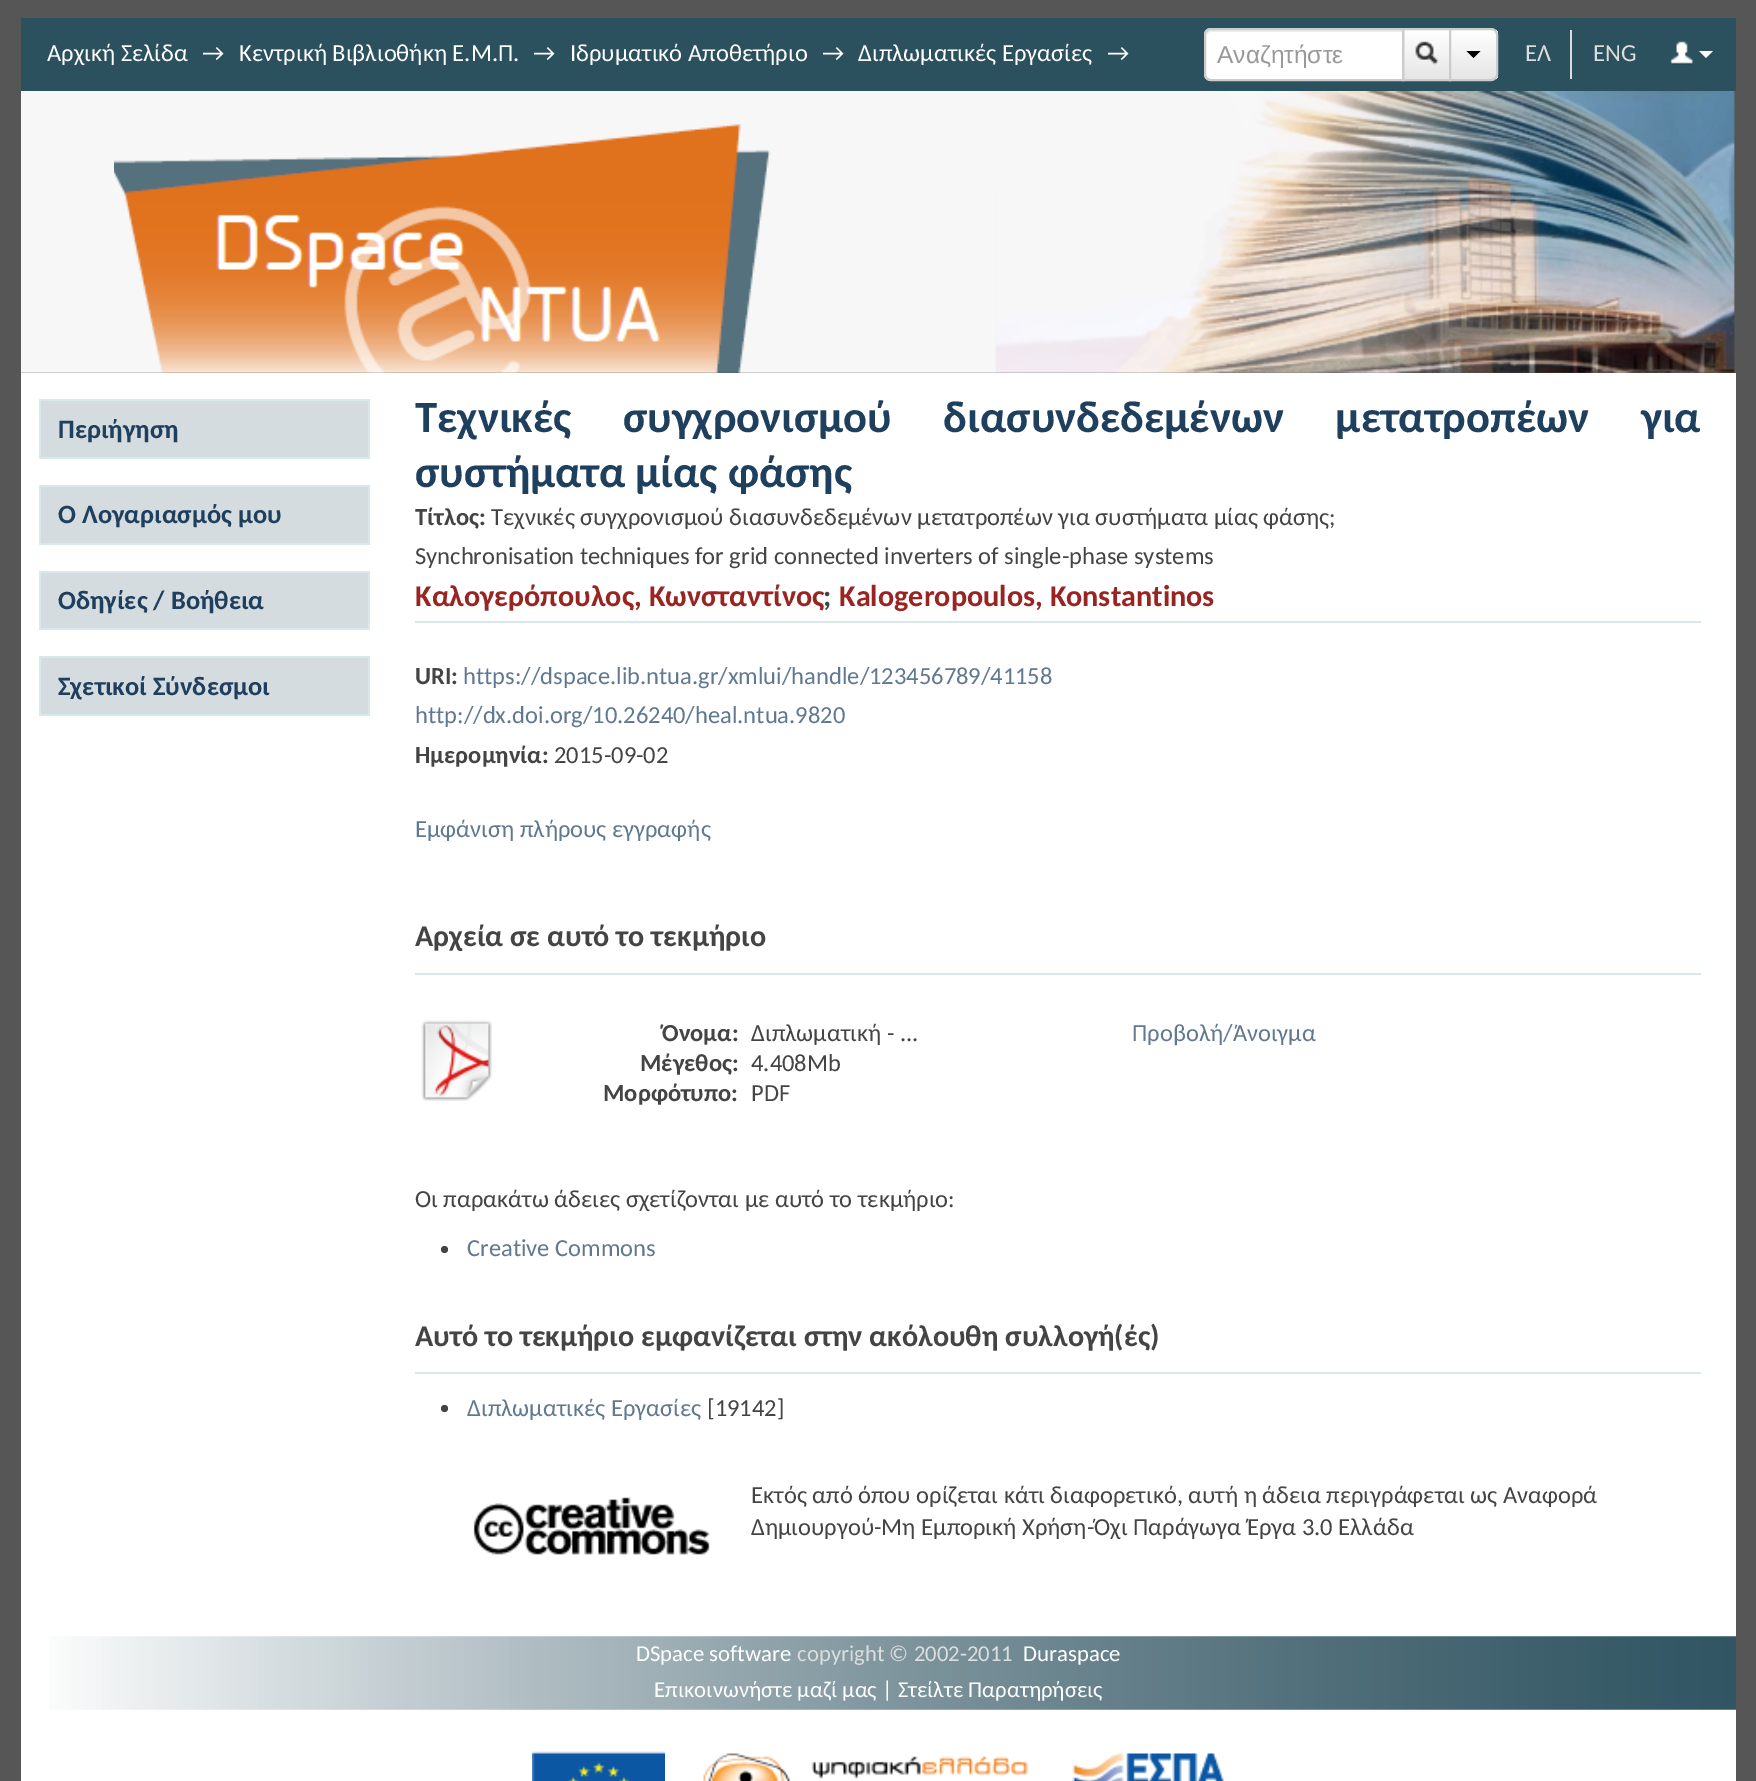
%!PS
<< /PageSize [1756 1781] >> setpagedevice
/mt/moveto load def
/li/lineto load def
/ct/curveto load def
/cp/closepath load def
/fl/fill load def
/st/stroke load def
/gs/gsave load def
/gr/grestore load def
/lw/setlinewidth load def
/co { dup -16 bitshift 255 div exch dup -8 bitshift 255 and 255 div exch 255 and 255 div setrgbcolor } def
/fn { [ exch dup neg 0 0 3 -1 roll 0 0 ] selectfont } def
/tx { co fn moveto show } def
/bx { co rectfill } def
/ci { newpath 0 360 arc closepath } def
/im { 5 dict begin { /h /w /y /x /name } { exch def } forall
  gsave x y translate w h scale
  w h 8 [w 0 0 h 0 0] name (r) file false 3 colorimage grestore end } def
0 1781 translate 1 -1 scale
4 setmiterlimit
0 0 1756 1781 16#565656 bx
21 18 1715 73 16#2B505E bx
gs 1404 30 mt 1449 30 li 1449 79 li 1404 79 li cp clip newpath
<< /ShadingType 2 /ColorSpace /DeviceRGB /Coords [1426 30 1426 79] /Extend [true true] /Function << /FunctionType 2 /Domain [0 1] /C0 [1 1 1] /C1 [.902 .902 .902] /N 1 >> >> shfill gr
16#CCCCCC co
2 lw
1403 29 47 51 rectstroke
16#FFFFFF co
1211 28 mt 1404 28 li 1404 81 li 1211 81 li 1207 81 1204 78 1204 74 ct 1204 35 li 1204 31 1207 28 1211 28 ct cp fl
16#ECECEC co
1211 32 mt 1402 32 li 1402 30 li 1211 30 li 1208 30 1206 32 1206 35 ct 1206 37 li 1206 34 1208 32 1211 32 ct cp fl
16#CCCCCC co
1211 29 mt 1403 29 li 1403 80 li 1211 80 li 1207.5 80 1205 77.5 1205 74 ct 1205 35 li 1205 31.5 1207.5 29 1211 29 ct cp st
(media/1.raw) 1415 41 24 24 im
gs
1449 28 mt 1491 28 li 1495 28 1498 31 1498 35 ct 1498 74 li 1498 78 1495 81 1491 81 ct 1449 81 li cp clip newpath
gs 1451 30 mt 1498 30 li 1498 79 li 1451 79 li cp clip newpath
<< /ShadingType 2 /ColorSpace /DeviceRGB /Coords [1474 30 1474 79] /Extend [true true] /Function << /FunctionType 2 /Domain [0 1] /C0 [1 1 1] /C1 [.902 .902 .902] /N 1 >> >> shfill gr
gr
1450 29 mt 1491 29 li 1494.5 29 1497 31.5 1497 35 ct 1497 74 li 1497 77.5 1494.5 80 1491 80 ct 1450 80 li cp st
16#000000 co
1466.5 51 mt 1480.5 51 li 1473.5 58 li cp fl
1570 30 2 49 16#DDDDDD bx
(media/2.raw) 1670 41 23 24 im
16#FFFFFF co
1699 51 mt 1713 51 li 1706 58 li cp fl
(media/3.raw) 21 91 1714 282 im
108 160 6 15 16#F7F7F7 bx
21 373 1715 1408 16#FFFFFF bx
41 401 327 56 16#D5DCDF bx
39 399 330 2 16#D8E8EB bx
368 399 2 60 16#D8E8EB bx
39 399 2 58 16#D8E8EB bx
39 457 330 2 16#D8E8EB bx
41 487 327 56 16#D5DCDF bx
39 485 330 2 16#D8E8EB bx
368 485 2 60 16#D8E8EB bx
39 485 2 58 16#D8E8EB bx
39 543 330 2 16#D8E8EB bx
41 573 327 55 16#D5DCDF bx
39 571 330 2 16#D8E8EB bx
368 571 2 59 16#D8E8EB bx
39 571 2 57 16#D8E8EB bx
39 628 330 2 16#D8E8EB bx
41 658 327 56 16#D5DCDF bx
39 656 330 2 16#D8E8EB bx
368 656 2 60 16#D8E8EB bx
39 656 2 58 16#D8E8EB bx
39 714 330 2 16#D8E8EB bx
415 621 1286 2 16#D8E8EB bx
415 973 1286 2 16#D8E8EB bx
(media/4.raw) 421 1020 71 81 im
16#444444 co
444.5 1249.5 3.5 ci fl
415 1372 1286 2 16#D8E8EB bx
16#444444 co
444.5 1408.5 3.5 ci fl
(media/5.raw) 463 1497 264 69 im
(media/6.raw) 49 1636 1687 37 im
(media/7.raw) 49 1673 1687 37 im
(media/8.raw) 532 1751 133 30 im
(media/9.raw) 703 1753 325 28 im
(media/10.raw) 1072 1753 152 28 im
(Αρχική Σελίδα) 47 61 /Carlito-Regular 24.5 16#FFFFFF tx
(→) 202 61 /Carlito-Regular 24.5 16#FFFFFF tx
(Κεντρική Βιβλιοθήκη Ε.Μ.Π.) 239 61 /Carlito-Regular 24.5 16#FFFFFF tx
(→) 533 61 /Carlito-Regular 24.5 16#FFFFFF tx
(Ιδρυματικό Αποθετήριο) 570 61 /Carlito-Regular 24.5 16#FFFFFF tx
(→) 822 61 /Carlito-Regular 24.5 16#FFFFFF tx
(Διπλωματικές Εργασίες) 858 61 /Carlito-Regular 24.5 16#FFFFFF tx
(→) 1107 61 /Carlito-Regular 24.5 16#FFFFFF tx
(Αναζητήστε) 1217 63 /LiberationSans-Regular 24.5 16#999999 tx
(ΕΛ) 1525 61 /Carlito-Regular 24.5 16#DDDDDD tx
(ENG) 1593 61 /Carlito-Regular 24.5 16#DDDDDD tx
(Περιήγηση) 58 438 /Carlito-Bold 26.5 16#1F3F5E tx
(Ο Λογαριασμός μου) 58 523 /Carlito-Bold 26.5 16#1F3F5E tx
(Οδηγίες / Βοήθεια) 58 609 /Carlito-Bold 26.5 16#1F3F5E tx
(Σχετικοί Σύνδεσμοι) 58 695 /Carlito-Bold 26.5 16#1F3F5E tx
/Carlito-Bold 44.6 fn
415 432 mt 41.5 0 32 (Τεχνικές συγχρονισμού διασυνδεδεμένων μετατροπέων για) widthshow
(συστήματα μίας φάσης) 415 487 /Carlito-Bold 44.6 16#1F3F5E tx
(Τίτλος:) 415 525 /Carlito-Bold 24.5 16#444444 tx
(Τεχνικές συγχρονισμού διασυνδεδεμένων μετατροπέων για συστήματα μίας φάσης;) 491 525 /Carlito-Regular 24.5 16#444444 tx
(Synchronisation techniques for grid connected inverters of single-phase systems) 415 564 /Carlito-Regular 24.5 16#444444 tx
(Καλογερόπουλος, Κωνσταντίνος) 415 606 /Carlito-Bold 30.2 16#982521 tx
(;) 823 606 /Carlito-Bold 30.2 16#444444 tx
(Kalogeropoulos, Konstantinos) 839 606 /Carlito-Bold 30.2 16#982521 tx
(URI:) 415 684 /Carlito-Bold 24.5 16#444444 tx
(https://dspace.lib.ntua.gr/xmlui/handle/123456789/41158) 463 684 /Carlito-Regular 24.5 16#607890 tx
(http://dx.doi.org/10.26240/heal.ntua.9820) 415 723 /Carlito-Regular 24.5 16#607890 tx
(Ημερομηνία:) 415 763 /Carlito-Bold 24.5 16#444444 tx
(2015-09-02) 554 763 /Carlito-Regular 24.5 16#444444 tx
(Εμφάνιση πλήρους εγγραφής) 415 837 /Carlito-Regular 24.5 16#607890 tx
(Αρχεία σε αυτό το τεκμήριο) 415 946 /Carlito-Bold 30.2 16#444444 tx
(Όνομα:) 662 1041 /Carlito-Bold 24.5 16#444444 tx
(Διπλωματική - ...) 751 1041 /Carlito-Regular 24.5 16#444444 tx
(Μέγεθος:) 640 1071 /Carlito-Bold 24.5 16#444444 tx
(4.408Mb) 751 1071 /Carlito-Regular 24.5 16#444444 tx
(Μορφότυπο:) 603 1101 /Carlito-Bold 24.5 16#444444 tx
(PDF) 751 1101 /Carlito-Regular 24.5 16#444444 tx
(Προβολή/Άνοιγμα) 1132 1041 /Carlito-Regular 24.5 16#607890 tx
(Οι παρακάτω άδειες σχετίζονται με αυτό το τεκμήριο:) 415 1207 /Carlito-Regular 24.5 16#444444 tx
(Creative Commons) 467 1256 /Carlito-Regular 24.5 16#607890 tx
(Αυτό το τεκμήριο εμφανίζεται στην ακόλουθη συλλογή\(ές\)) 415 1346 /Carlito-Bold 30.2 16#444444 tx
(Διπλωματικές Εργασίες) 467 1416 /Carlito-Regular 24.5 16#607890 tx
([19142]) 707 1416 /Carlito-Regular 24.5 16#444444 tx
(Εκτός από όπου ορίζεται κάτι διαφορετικό, αυτή η άδεια περιγράφεται ως Αναφορά) 751 1503 /Carlito-Regular 24.5 16#444444 tx
(Δημιουργού-Μη Εμπορική Χρήση-Όχι Παράγωγα Έργα 3.0 Ελλάδα) 751 1535 /Carlito-Regular 24.5 16#444444 tx
(DSpace software) 636 1661 /Carlito-Regular 22.75 16#FFFFFF tx
(copyright © 2002-2011) 797 1661 /Carlito-Regular 22.75 16#DDDDDD tx
(Duraspace) 1023 1661 /Carlito-Regular 22.75 16#FFFFFF tx
(Επικοινωνήστε μαζί μας | Στείλτε Παρατηρήσεις) 654 1697 /Carlito-Regular 22.75 16#FFFFFF tx
showpage
